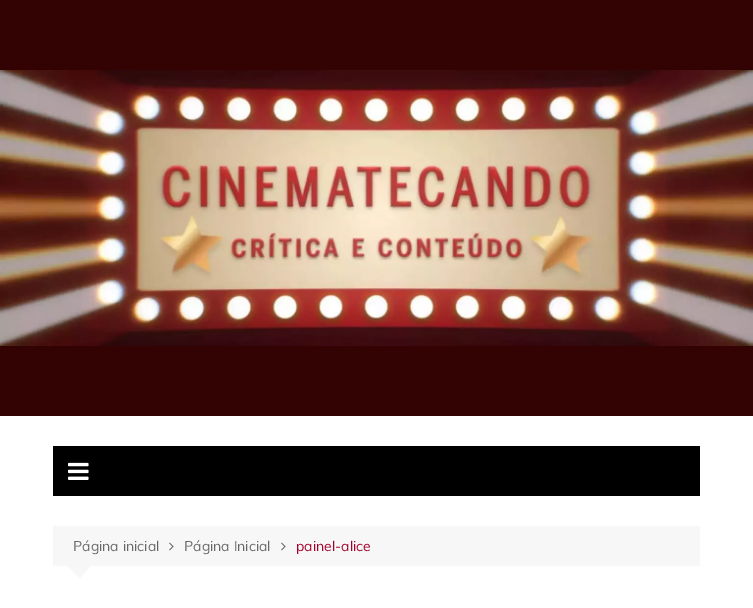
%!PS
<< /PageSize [753 608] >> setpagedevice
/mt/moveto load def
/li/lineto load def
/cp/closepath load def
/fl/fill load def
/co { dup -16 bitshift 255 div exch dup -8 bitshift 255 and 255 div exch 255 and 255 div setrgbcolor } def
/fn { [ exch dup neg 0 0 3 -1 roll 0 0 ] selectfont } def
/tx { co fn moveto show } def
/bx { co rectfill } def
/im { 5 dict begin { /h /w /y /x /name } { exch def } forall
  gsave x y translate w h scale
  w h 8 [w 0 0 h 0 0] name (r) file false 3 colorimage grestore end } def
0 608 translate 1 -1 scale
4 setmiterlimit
0 0 753 608 16#FFFFFF bx
0 0 753 416 16#330202 bx
(media/1.raw) 0 70 753 276 im
53 446 647 50 16#000000 bx
(media/2.raw) 68 462 21 18 im
53 526 647 40 16#F7F7F7 bx
(media/3.raw) 169 542 5 9 im
(media/3.raw) 281 542 5 9 im
67.5 565.5 mt 91.5 565.5 li 79.5 578.5 li cp fl
(Página inicial) 73 551 /Muli-Regular 14 16#666666 tx
(Página Inicial) 184 551 /Muli-Regular 14 16#666666 tx
(painel-alice) 296 551 /Muli-Regular 14 16#A5002C tx
showpage
